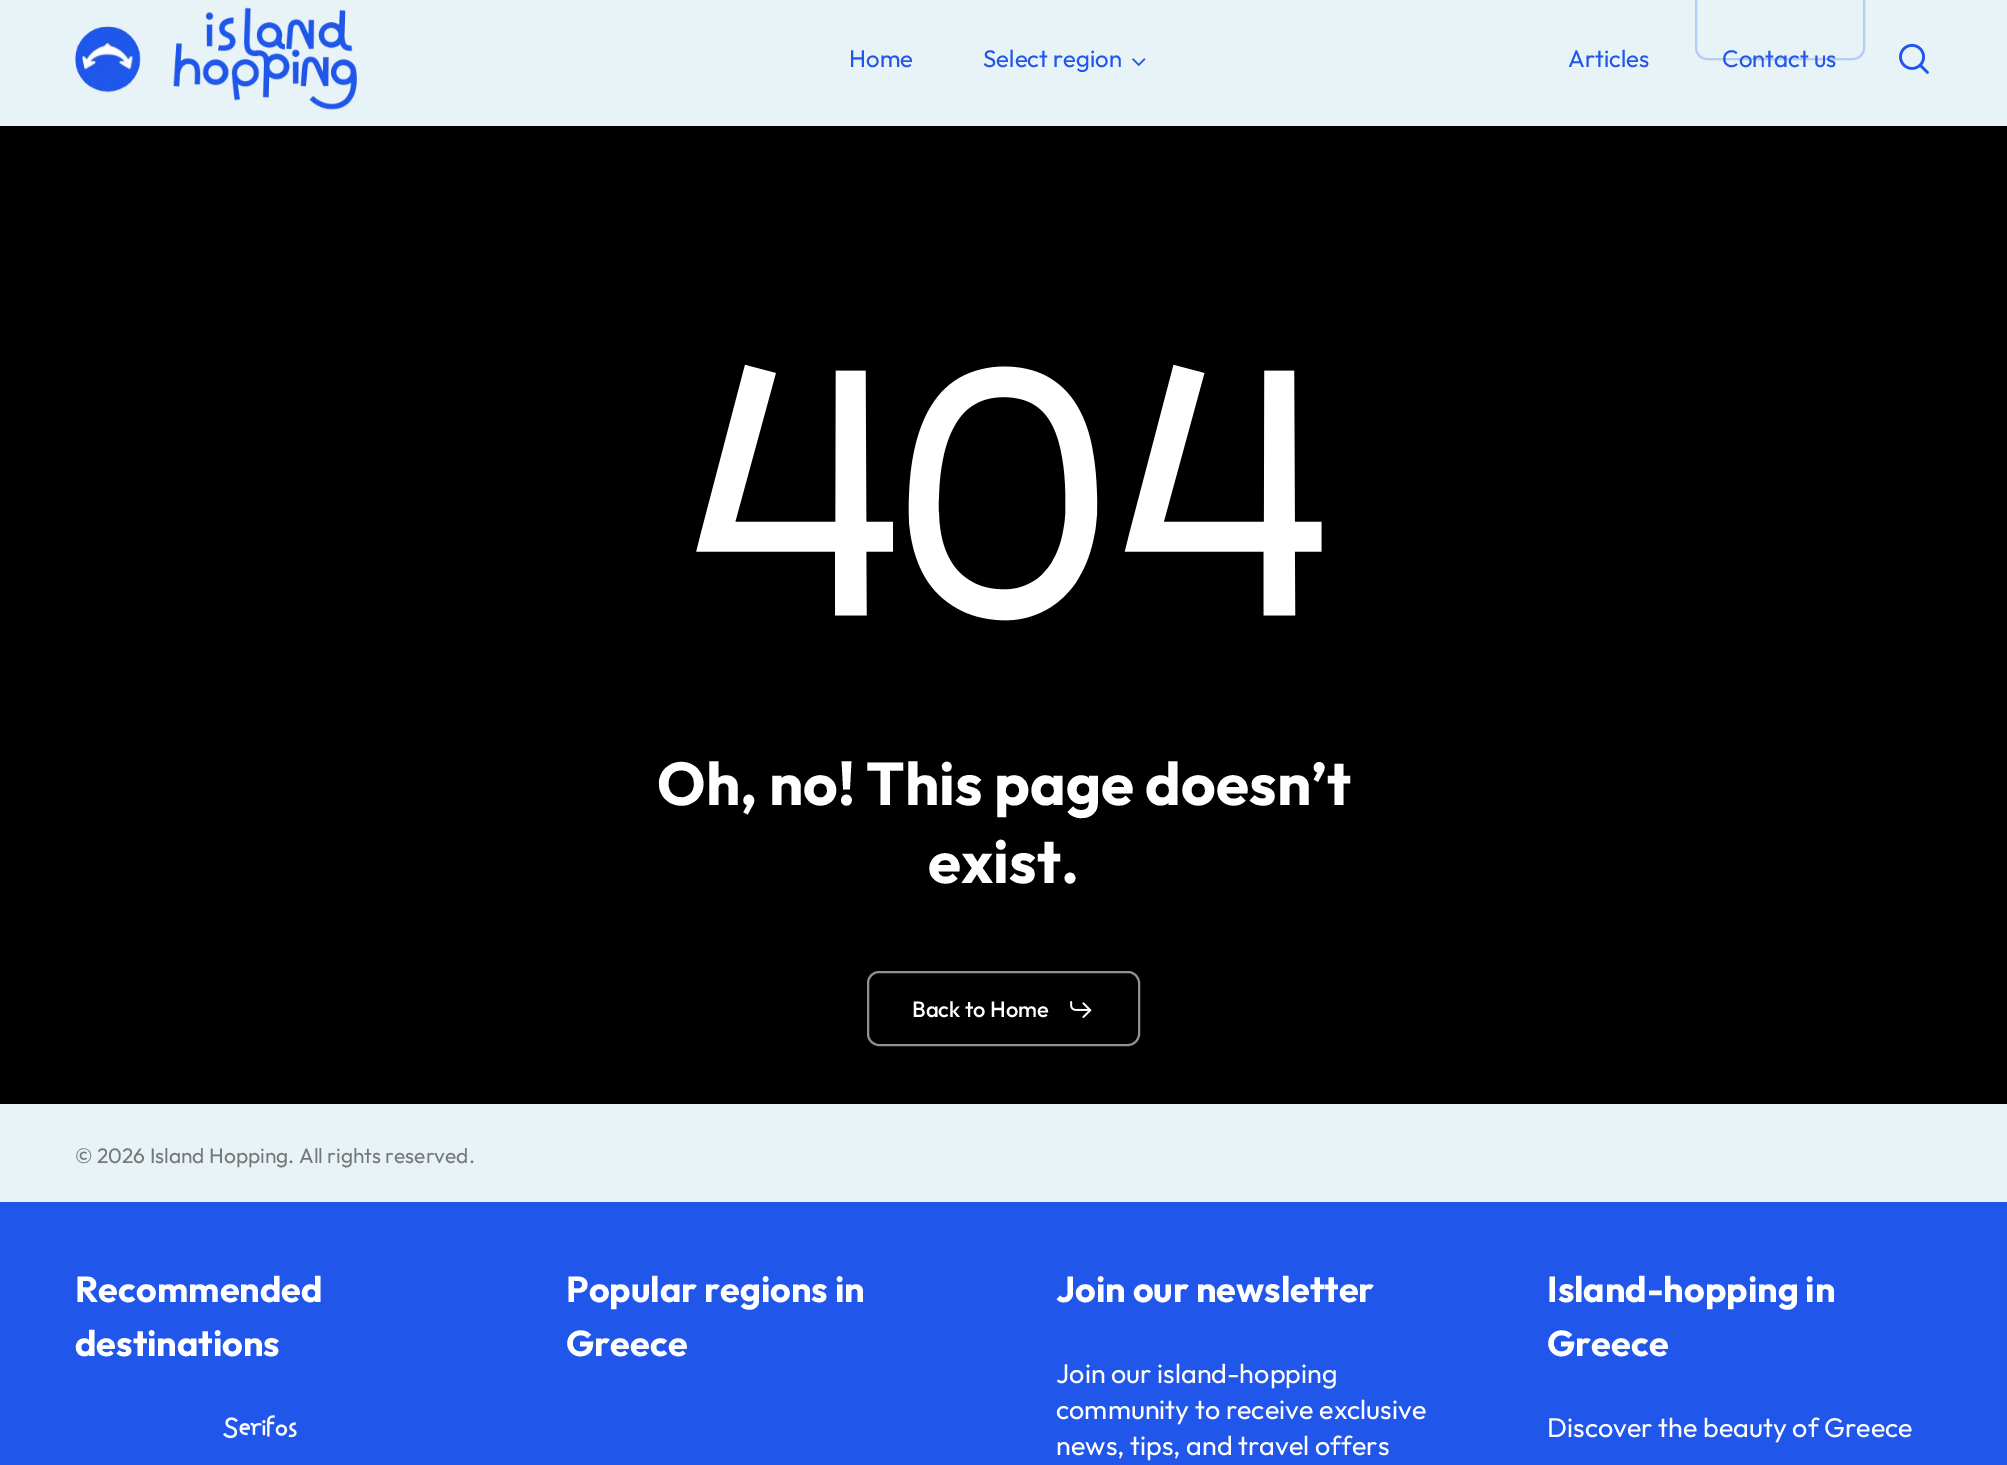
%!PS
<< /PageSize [2007 1465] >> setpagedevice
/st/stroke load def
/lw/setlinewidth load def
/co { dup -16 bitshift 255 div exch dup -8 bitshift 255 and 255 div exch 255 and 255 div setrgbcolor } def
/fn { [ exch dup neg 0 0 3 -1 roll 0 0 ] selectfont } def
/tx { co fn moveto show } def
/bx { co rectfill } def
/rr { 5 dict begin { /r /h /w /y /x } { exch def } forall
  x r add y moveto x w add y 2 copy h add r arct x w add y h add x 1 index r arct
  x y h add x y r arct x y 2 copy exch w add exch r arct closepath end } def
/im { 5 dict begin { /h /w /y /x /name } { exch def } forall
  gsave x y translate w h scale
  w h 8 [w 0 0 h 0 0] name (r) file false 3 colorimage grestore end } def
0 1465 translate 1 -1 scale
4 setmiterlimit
0 0 2007 1465 16#E8F3F7 bx
(media/1.raw) 75 7 282 103 im
(media/2.raw) 1132 58 14 8 im
16#B6CCF4 co
2 lw
1696 -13 168 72 11 rr st
(media/3.raw) 1899 43 30 31 im
0 126 2007 978 16#000000 bx
(media/4.raw) 696 364 626 257 im
16#919191 co
868 972 271 73 11 rr st
(media/5.raw) 1070 1001 22 17 im
0 1202 2007 263 16#2056EA bx
(media/6.raw) 223 1415 74 24 im
(Home) 849 67 /Outfit-Regular 24 16#2056EA tx
(Select region) 983 67 /Outfit-Regular 24 16#2056EA tx
(Articles) 1568 67 /Outfit-Regular 24 16#2056EA tx
(Contact us) 1722 67 /Outfit-Regular 24 16#2056EA tx
(Oh, no! This page doesn’t) 657 805 /Outfit-Bold 60.25 16#FFFFFF tx
(exist.) 928 883 /Outfit-Bold 60.25 16#FFFFFF tx
(Back to Home) 912 1017 /Outfit-Medium 22 16#FFFFFF tx
(© 2026 Island Hopping. All rights reserved.) 75 1163 /Outfit-Regular 21 16#777777 tx
(Recommended) 75 1302 /Outfit-Bold 36 16#FFFFFF tx
(destinations) 75 1356 /Outfit-Bold 36 16#FFFFFF tx
(Popular regions in) 566 1302 /Outfit-Bold 36 16#FFFFFF tx
(Greece) 566 1356 /Outfit-Bold 36 16#FFFFFF tx
(Join our newsletter) 1056 1302 /Outfit-Bold 36 16#FFFFFF tx
(Join our island-hopping) 1056 1383 /Outfit-Regular 27 16#FFFFFF tx
(community to receive exclusive) 1056 1419 /Outfit-Regular 27 16#FFFFFF tx
(news, tips, and travel offers) 1056 1455 /Outfit-Regular 27 16#FFFFFF tx
(Island-hopping in) 1547 1302 /Outfit-Bold 36 16#FFFFFF tx
(Greece) 1547 1356 /Outfit-Bold 36 16#FFFFFF tx
(Discover the beauty of Greece) 1547 1437 /Outfit-Regular 27 16#FFFFFF tx
showpage
